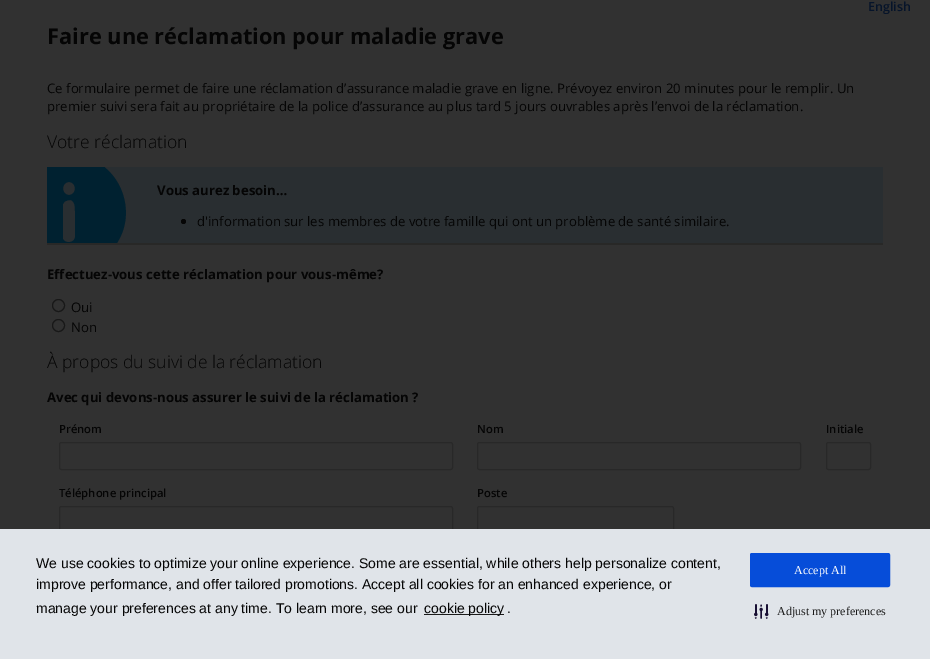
%!PS
<< /PageSize [930 659] >> setpagedevice
/mt/moveto load def
/li/lineto load def
/ct/curveto load def
/cp/closepath load def
/fl/fill load def
/st/stroke load def
/gs/gsave load def
/gr/grestore load def
/co { dup -16 bitshift 255 div exch dup -8 bitshift 255 and 255 div exch 255 and 255 div setrgbcolor } def
/fn { [ exch dup neg 0 0 3 -1 roll 0 0 ] selectfont } def
/tx { co fn moveto show } def
/bx { co rectfill } def
/ci { newpath 0 360 arc closepath } def
/rr { 5 dict begin { /r /h /w /y /x } { exch def } forall
  x r add y moveto x w add y 2 copy h add r arct x w add y h add x 1 index r arct
  x y h add x y r arct x y 2 copy exch w add exch r arct closepath end } def
/im { 5 dict begin { /h /w /y /x /name } { exch def } forall
  gsave x y translate w h scale
  w h 8 [w 0 0 h 0 0] name (r) file false 3 colorimage grestore end } def
0 659 translate 1 -1 scale
4 setmiterlimit
0 0 930 659 16#313131 bx
63 167 820 76 16#292E31 bx
47 243 836 2 16#282827 bx
gs
47 167 836 76 rectclip
16#002130 co
69 155 mt 13 155 -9 228 37 259 ct 46 266 58 269 69 269 ct 80 269 91 266 101 259 ct 147 228 125 155 69 155 ct cp 75 237 mt 75 243 65 244 63 239 ct 63 204 li 64 202 65 201 66 201 ct 68 200 69 200 71 200 ct 75 202 75 207 75 211 ct cp 69 195 mt 61 195 61 182 69 182 ct 77 182 77 195 69 195 ct cp fl
gr
16#050505 co
183.5 221.5 2.5 ci fl
16#181818 co
58.5 305.5 6 ci st
58.5 325.5 6 ci st
16#282828 co
59.5 442.5 393 27 2 rr st
477.5 442.5 323 27 2 rr st
826.5 442.5 44 27 2 rr st
59.5 506.5 393 27 2 rr st
477.5 506.5 196 27 2 rr st
0 529 930 130 16#E0E4E9 bx
424 614 80 1 16#1B1B1B bx
16#064DD9 co
750.5 553.5 139 33 1.5 rr gs fl gr
st
(media/1.raw) 754 604 15 15 im
(English) 868 11 /OpenSans-SemiBold 12.5 16#06142A tx
(Faire une réclamation pour maladie grave) 47 44 /OpenSans-Bold 21.8 16#050505 tx
(Ce formulaire permet de faire une réclamation d’assurance maladie grave en ligne. Prévoyez environ 20 minutes pour le remplir. Un) 47 93 /OpenSans-Regular 13.15 16#050505 tx
(premier suivi sera fait au propriétaire de la police d’assurance au plus tard 5 jours ouvrables après l’envoi de la réclamation.) 47 111 /OpenSans-Regular 13.15 16#050505 tx
(Votre réclamation) 47 148 /OpenSans-Light 17.5 16#050505 tx
(Vous aurez besoin…) 157 195 /OpenSans-Bold 13.15 16#050505 tx
(d'information sur les membres de votre famille qui ont un problème de santé similaire.) 197 226 /OpenSans-Regular 13.15 16#050505 tx
(Effectuez-vous cette réclamation pour vous-même?) 47 279 /OpenSans-Bold 13.15 16#050505 tx
(Oui) 71 312 /OpenSans-Regular 13.15 16#050505 tx
(Non) 71 332 /OpenSans-Regular 13.15 16#050505 tx
(À propos du suivi de la réclamation) 47 368 /OpenSans-Light 17.5 16#050505 tx
(Avec qui devons-nous assurer le suivi de la réclamation ?) 47 402 /OpenSans-Bold 13.15 16#050505 tx
(Prénom) 59 433 /OpenSans-SemiBold 11.25 16#050505 tx
(Nom) 477 433 /OpenSans-SemiBold 11.25 16#050505 tx
(Initiale) 826 433 /OpenSans-SemiBold 11.25 16#050505 tx
(Téléphone principal) 59 497 /OpenSans-SemiBold 11.25 16#050505 tx
(Poste) 477 497 /OpenSans-SemiBold 11.25 16#050505 tx
(We use cookies to optimize your online experience. Some are essential, while others help personalize content,) 36 568 /LiberationSans-Regular 14 16#050505 tx
(improve performance, and offer tailored promotions. Accept all cookies for an enhanced experience, or) 36 589 /LiberationSans-Regular 14 16#050505 tx
(manage your preferences at any time. To learn more, see our) 36 613 /LiberationSans-Regular 14 16#050505 tx
(cookie policy) 424 613 /LiberationSans-Regular 14 16#050505 tx
(.) 507 613 /LiberationSans-Regular 14 16#050505 tx
(Accept All) 794 574 /LiberationSerif-Regular 12 16#FFFFFF tx
(Adjust my preferences) 777 615 /LiberationSerif-Regular 12 16#1B1B1B tx
showpage
